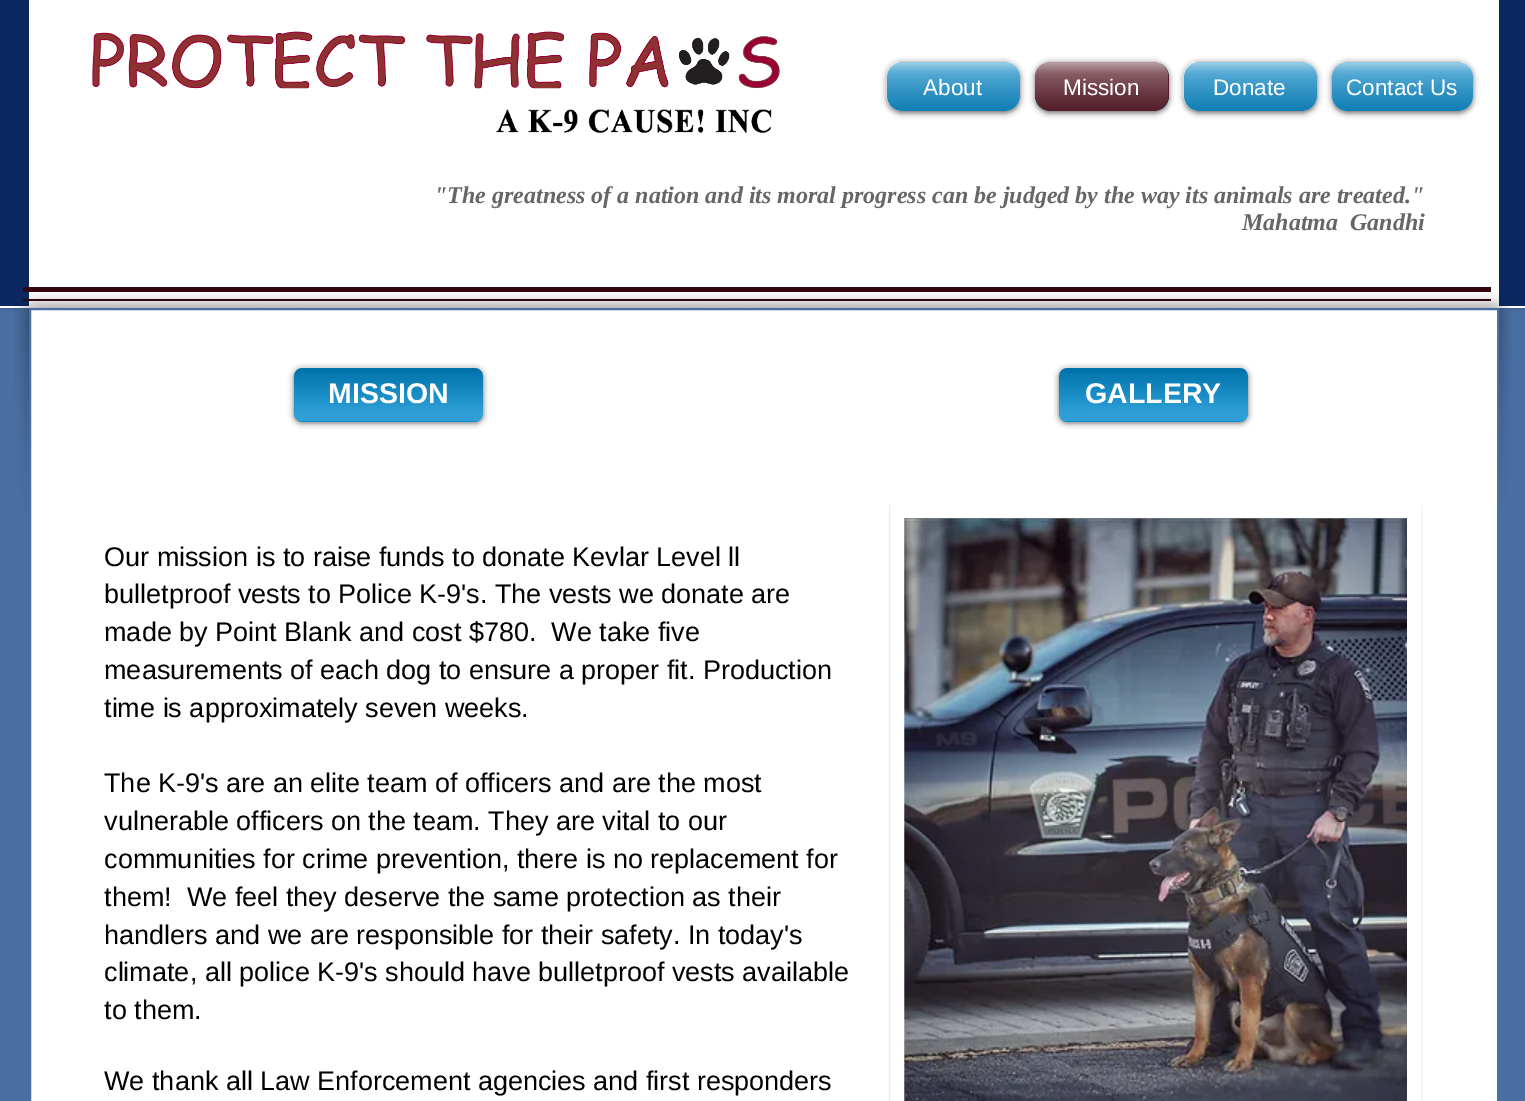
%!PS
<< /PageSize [1525 1101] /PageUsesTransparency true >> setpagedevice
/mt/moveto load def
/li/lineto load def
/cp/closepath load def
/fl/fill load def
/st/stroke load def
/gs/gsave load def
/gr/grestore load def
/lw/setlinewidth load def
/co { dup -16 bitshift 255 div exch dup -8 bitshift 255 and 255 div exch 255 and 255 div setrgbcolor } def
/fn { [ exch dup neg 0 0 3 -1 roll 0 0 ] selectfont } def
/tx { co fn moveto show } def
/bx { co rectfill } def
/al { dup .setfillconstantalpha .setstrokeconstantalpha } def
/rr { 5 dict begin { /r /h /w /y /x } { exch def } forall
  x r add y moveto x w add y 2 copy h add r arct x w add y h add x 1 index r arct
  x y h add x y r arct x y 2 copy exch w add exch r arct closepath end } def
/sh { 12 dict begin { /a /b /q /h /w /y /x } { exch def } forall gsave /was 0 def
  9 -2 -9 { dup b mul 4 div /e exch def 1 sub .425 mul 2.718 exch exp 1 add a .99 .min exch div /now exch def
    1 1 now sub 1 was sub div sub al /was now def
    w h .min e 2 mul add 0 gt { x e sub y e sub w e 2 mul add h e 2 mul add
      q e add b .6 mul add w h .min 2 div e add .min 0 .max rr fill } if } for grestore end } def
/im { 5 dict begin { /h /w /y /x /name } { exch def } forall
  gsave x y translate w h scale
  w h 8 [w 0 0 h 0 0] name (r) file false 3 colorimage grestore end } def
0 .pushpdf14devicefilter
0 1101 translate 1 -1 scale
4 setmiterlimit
0 0 1525 1101 16#4A6FA3 bx
16#000000 co
0 0 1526 308 0 2 .2 sh
0 0 1525 306 16#0C2861 bx
0 306 1525 2 16#FFFFFF bx
29 0 1470 306 16#FFFFFF bx
(media/1.raw) 92 31 688 58 im
16#000000 co
887 63 133 50 15 3 .6 sh
16#0088CB co
887 62 133 49 15 rr fl
(media/2.raw) 887 62 133 49 im
(media/3.raw) 886 62 134 49 im
16#000000 co
1035 63 134 50 15 3 .6 sh
16#520F1D co
1035 62 134 49 15 rr fl
(media/4.raw) 1035 62 134 49 im
(media/5.raw) 1035 62 133 49 im
16#000000 co
1184 63 133 50 15 3 .6 sh
16#0088CB co
1184 62 133 49 15 rr fl
(media/6.raw) 1184 62 133 49 im
(media/7.raw) 1183 62 134 49 im
16#000000 co
1332 63 141 50 15 3 .6 sh
16#0088CB co
1332 62 141 49 15 rr fl
(media/8.raw) 1332 62 141 49 im
(media/9.raw) 1332 62 141 49 im
(media/10.raw) 496 109 276 24 im
23 287 1468 5 16#330710 bx
23 299 1468 2 16#330710 bx
(media/11.raw) 14 292 67 222 im
(media/12.raw) 81 292 1365 16 im
(media/13.raw) 1446 292 67 217 im
16#FFFFFF co
30 309 mt 1498 309 li 1498 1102 li 30 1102 li cp gs fl gr
16#4A6FA3 co
2 lw
st
16#000000 co
294 369 189 54 8 3 .6 sh
16#0088CB co
294 368 189 54 8 rr fl
(media/14.raw) 294 367 189 39 im
(media/15.raw) 294 373 189 49 im
16#000000 co
1059 369 189 54 8 3 .6 sh
16#0088CB co
1059 368 189 54 8 rr fl
(media/16.raw) 1059 367 189 39 im
(media/17.raw) 1059 373 189 49 im
16#000000 co
890 506 531 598 0 1 .2 sh
(media/18.raw) 904 518 503 583 im
16#FFFFFF co
14 lw
897 511 517 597 rectstroke
(About) 923 95 /LiberationSans-Regular 22.5 16#FFFFFF tx
(Mission) 1063 95 /LiberationSans-Regular 22.5 16#FFFFFF tx
(Donate) 1213 95 /LiberationSans-Regular 22.5 16#FFFFFF tx
(Contact Us) 1346 95 /LiberationSans-Regular 22.5 16#FFFFFF tx
("The greatness of a nation and its moral progress can be judged by the way its animals are treated.") 434 203 /LiberationSerif-BoldItalic 24 16#666666 tx
(Mahatma  Gandhi) 1242 230 /LiberationSerif-BoldItalic 24 16#666666 tx
(MISSION) 328 403 /LiberationSans-Bold 28.5 16#FFFFFF tx
(GALLERY) 1085 403 /LiberationSans-Bold 28.5 16#FFFFFF tx
(Our mission is to raise funds to donate Kevlar Level ll) 104 566 /LiberationSans-Regular 27 16#000000 tx
(bulletproof vests to Police K-9's. The vests we donate are) 104 603 /LiberationSans-Regular 27 16#000000 tx
(made by Point Blank and cost $780.  We take five) 104 641 /LiberationSans-Regular 27 16#000000 tx
(measurements of each dog to ensure a proper fit. Production) 104 679 /LiberationSans-Regular 27 16#000000 tx
(time is approximately seven weeks.) 104 717 /LiberationSans-Regular 27 16#000000 tx
(The K-9's are an elite team of officers and are the most) 104 792 /LiberationSans-Regular 27 16#000000 tx
(vulnerable officers on the team. They are vital to our) 104 830 /LiberationSans-Regular 27 16#000000 tx
(communities for crime prevention, there is no replacement for) 104 868 /LiberationSans-Regular 27 16#000000 tx
(them!  We feel they deserve the same protection as their) 104 906 /LiberationSans-Regular 27 16#000000 tx
(handlers and we are responsible for their safety. In today's) 104 944 /LiberationSans-Regular 27 16#000000 tx
(climate, all police K-9's should have bulletproof vests available) 104 981 /LiberationSans-Regular 27 16#000000 tx
(to them.) 104 1019 /LiberationSans-Regular 27 16#000000 tx
(We thank all Law Enforcement agencies and first responders) 104 1090 /LiberationSans-Regular 27 16#000000 tx
.poppdf14devicefilter showpage
